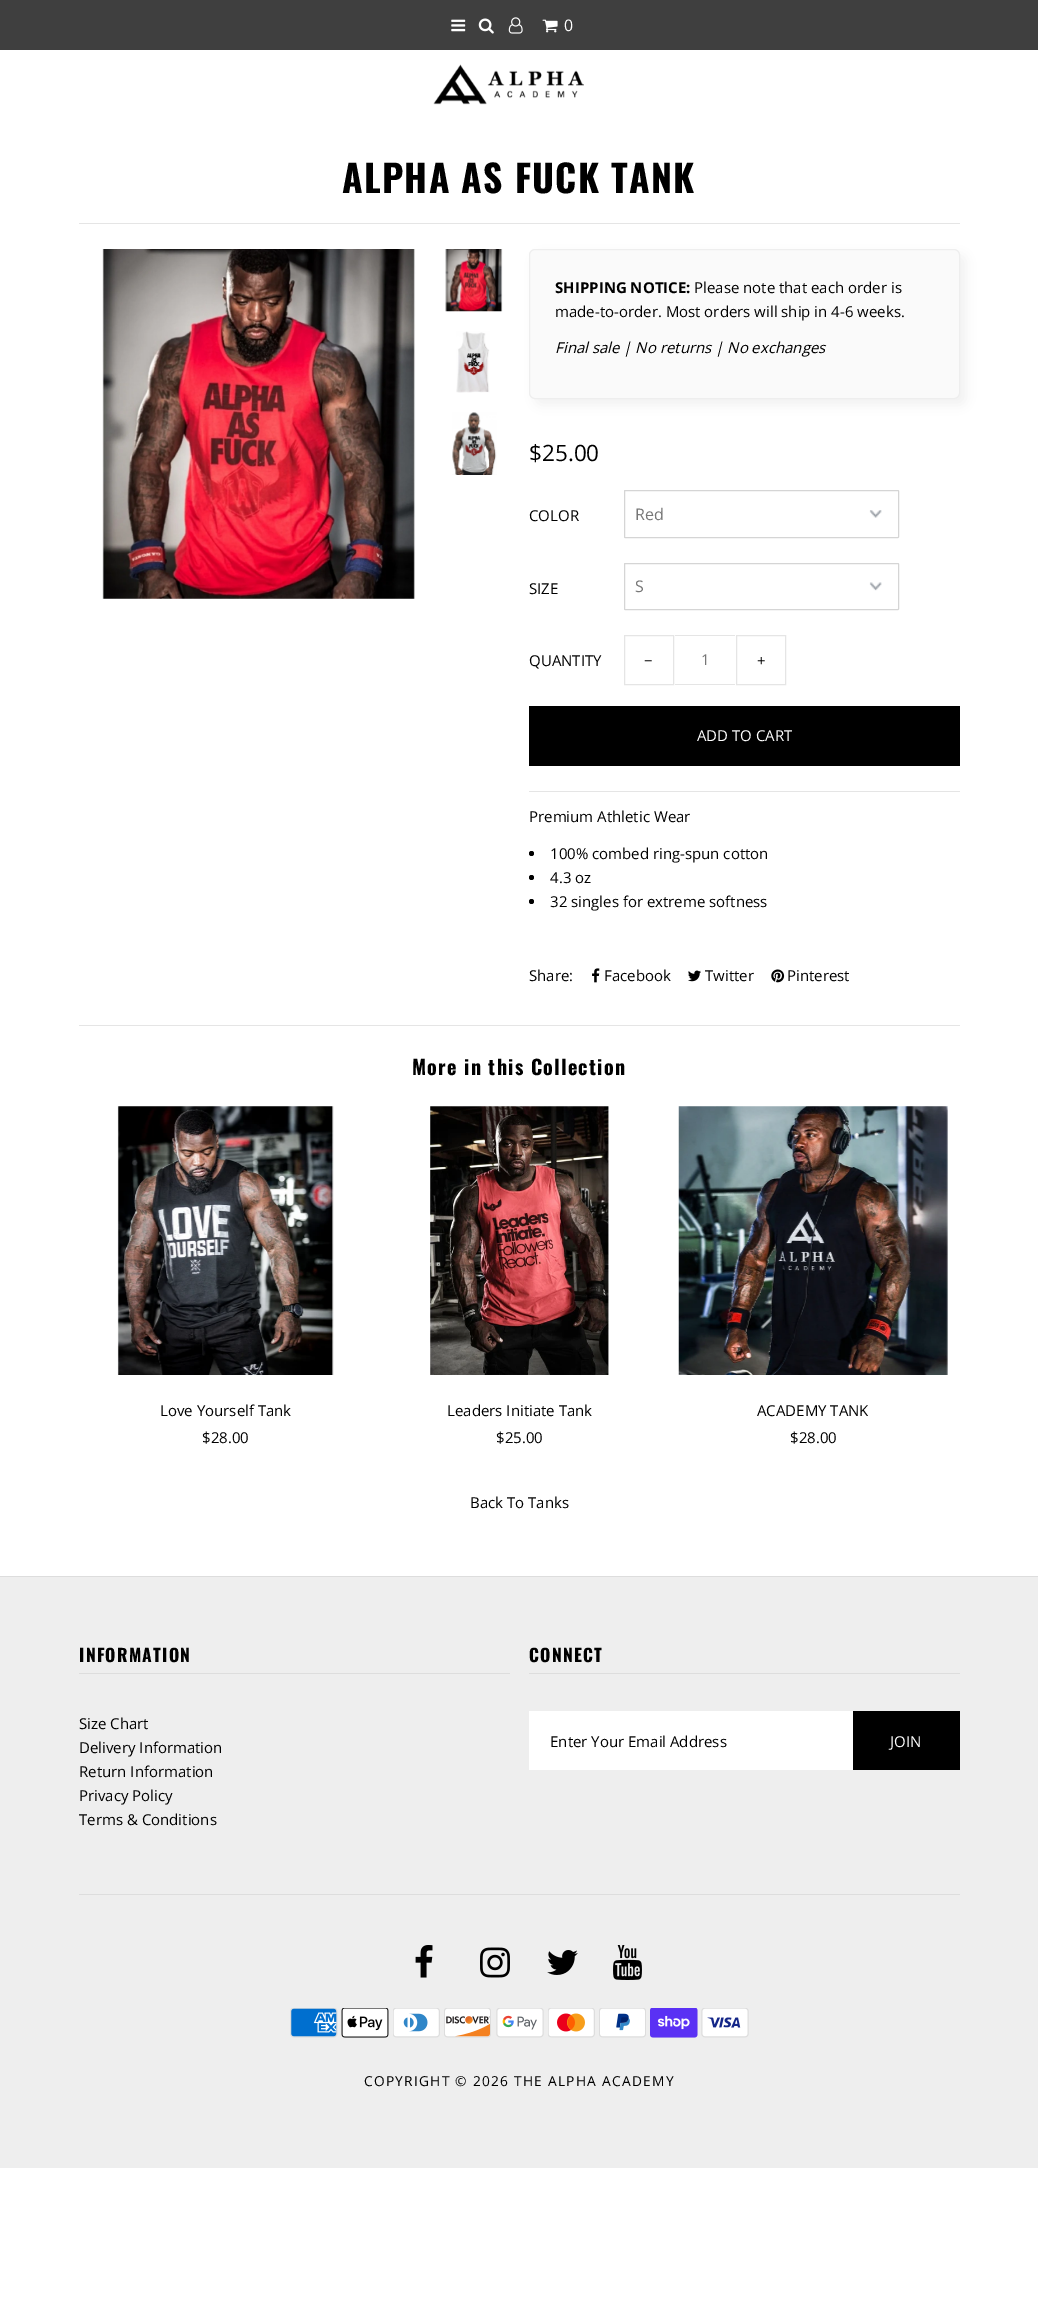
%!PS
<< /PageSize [1038 2314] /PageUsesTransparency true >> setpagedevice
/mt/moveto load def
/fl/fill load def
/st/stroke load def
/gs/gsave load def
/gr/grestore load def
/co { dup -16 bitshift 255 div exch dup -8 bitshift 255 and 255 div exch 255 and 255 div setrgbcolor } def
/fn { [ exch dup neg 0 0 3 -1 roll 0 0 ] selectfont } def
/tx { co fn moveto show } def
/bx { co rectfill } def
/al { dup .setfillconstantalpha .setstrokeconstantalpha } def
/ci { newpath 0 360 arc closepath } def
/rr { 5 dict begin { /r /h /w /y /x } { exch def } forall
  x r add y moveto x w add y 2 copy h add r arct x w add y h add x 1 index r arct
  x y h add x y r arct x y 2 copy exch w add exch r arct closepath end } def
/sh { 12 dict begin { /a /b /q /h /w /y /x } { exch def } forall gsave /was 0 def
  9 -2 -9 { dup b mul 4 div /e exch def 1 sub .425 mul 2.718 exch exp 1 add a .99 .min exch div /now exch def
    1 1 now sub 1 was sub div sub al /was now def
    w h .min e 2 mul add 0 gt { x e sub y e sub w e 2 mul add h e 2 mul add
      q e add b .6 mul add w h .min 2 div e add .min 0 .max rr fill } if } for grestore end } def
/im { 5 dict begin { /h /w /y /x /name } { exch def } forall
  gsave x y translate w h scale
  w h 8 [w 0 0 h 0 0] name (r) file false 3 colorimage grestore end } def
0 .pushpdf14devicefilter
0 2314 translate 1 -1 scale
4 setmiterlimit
0 0 1038 2314 16#FFFFFF bx
0 0 1038 50 16#3F3F3F bx
(media/1.raw) 451 19 15 13 im
(media/2.raw) 478 18 16 16 im
(media/3.raw) 508 17 15 17 im
(media/4.raw) 542 19 16 14 im
(media/5.raw) 433 64 151 41 im
79 223 881 1 16#E5E5E5 bx
(media/6.raw) 102 249 314 350 im
(media/7.raw) 445 249 58 63 im
(media/8.raw) 456 331 34 62 im
(media/9.raw) 452 412 45 63 im
16#000000 co
535 255 431 150 6 6 .05 sh
16#FAFAFA co
529.5 249.5 430 149 5.5 rr gs fl gr
16#EEEEEE co
st
529 791 431 1 16#E5E5E5 bx
(media/10.raw) 869 510 13 8 im
16#D5D5D5 co
624.5 490.5 274 47 .5 rr st
(media/11.raw) 869 582 13 9 im
624.5 563.5 274 46 .5 rr st
16#E5E5E5 co
624.5 635.5 49 49 rectstroke
675 635 60 1 16#E5E5E5 bx
675 684 60 1 16#E5E5E5 bx
736.5 635.5 49 49 rectstroke
529 706 431 60 16#000000 bx
531.5 853.5 2.5 ci fl
531.5 877.5 2.5 ci fl
531.5 901.5 2.5 ci fl
(media/12.raw) 592 968 8 15 im
(media/13.raw) 688 970 13 12 im
(media/14.raw) 771 969 14 14 im
79 1025 881 1 16#E5E5E5 bx
(media/15.raw) 117 1106 217 269 im
(media/16.raw) 430 1106 179 269 im
(media/17.raw) 678 1106 270 269 im
0 1577 1038 591 16#EEEEEE bx
0 1576 1038 1 16#DDDDDD bx
79 1673 431 1 16#DDDDDD bx
529 1673 431 1 16#DDDDDD bx
529 1711 324 59 16#FFFFFF bx
853 1711 107 59 16#000000 bx
79 1894 881 1 16#DDDDDD bx
(media/18.raw) 415 1945 18 33 im
(media/19.raw) 480 1947 30 31 im
(media/20.raw) 547 1950 31 25 im
(media/21.raw) 613 1945 29 35 im
(media/22.raw) 290 2008 48 30 im
(media/23.raw) 341 2008 48 30 im
(media/24.raw) 393 2008 47 30 im
(media/25.raw) 444 2008 47 30 im
(media/26.raw) 496 2008 48 30 im
(media/27.raw) 548 2008 47 30 im
(media/28.raw) 599 2008 47 30 im
(media/29.raw) 650 2008 48 30 im
(media/30.raw) 701 2008 48 30 im
/OpenSans-Regular 16 fn
16#FFFFFF co
564 31 mt 1.25 0 (0) ashow
/Oswald-Bold 37.5 fn
16#000000 co
342 193 mt 1.25 0 (ALPHA AS FUCK TANK) ashow
(SHIPPING NOTICE:) 555 293 /OpenSans-Bold 15 16#000000 tx
(Please note that each order is) 694 293 /OpenSans-Regular 15 16#000000 tx
(made-to-order. Most orders will ship in 4-6 weeks.) 555 317 /OpenSans-Regular 15 16#000000 tx
(Final sale | No returns | No exchanges) 555 353 /OpenSans-Italic 15 16#000000 tx
($25.00) 529 461 /OpenSans-Regular 22.5 16#000000 tx
(COLOR) 529 521 /OpenSans-Regular 15 16#000000 tx
(Red) 635 520 /OpenSans-Regular 16 16#777777 tx
(SIZE) 529 594 /OpenSans-Regular 15 16#000000 tx
(S) 635 592 /OpenSans-Regular 16 16#777777 tx
(QUANTITY) 529 666 /OpenSans-Regular 15 16#000000 tx
(−) 644 666 /OpenSans-Regular 15 16#000000 tx
(1) 701 665 /OpenSans-Regular 15 16#777777 tx
(+) 757 666 /OpenSans-Regular 15 16#000000 tx
(ADD TO CART) 697 741 /OpenSans-Regular 15 16#FFFFFF tx
(Premium Athletic Wear) 529 822 /OpenSans-Regular 15 16#000000 tx
(100% combed ring-spun cotton) 550 859 /OpenSans-Regular 15 16#000000 tx
(4.3 oz) 550 883 /OpenSans-Regular 15 16#000000 tx
(32 singles for extreme softness) 550 907 /OpenSans-Regular 15 16#000000 tx
(Share:) 529 981 /OpenSans-Regular 15 16#000000 tx
(Facebook) 604 981 /OpenSans-Regular 15 16#000000 tx
(Twitter) 705 981 /OpenSans-Regular 15 16#000000 tx
(Pinterest) 787 981 /OpenSans-Regular 15 16#000000 tx
/Oswald-Bold 20 fn
412 1075 mt 1.25 0 (More in this Collection) ashow
(Love Yourself Tank) 160 1416 /OpenSans-Regular 15 16#000000 tx
($28.00) 202 1443 /OpenSans-Regular 15 16#000000 tx
(Leaders Initiate Tank) 447 1416 /OpenSans-Regular 15 16#000000 tx
($25.00) 496 1443 /OpenSans-Regular 15 16#000000 tx
(ACADEMY TANK) 757 1416 /OpenSans-Regular 15 16#000000 tx
($28.00) 790 1443 /OpenSans-Regular 15 16#000000 tx
(Back To Tanks) 470 1508 /OpenSans-Regular 15 16#000000 tx
/Oswald-Bold 17.5 fn
79 1662 mt 1.25 0 (INFORMATION) ashow
(Size Chart) 79 1729 /OpenSans-Regular 15 16#000000 tx
(Delivery Information) 79 1753 /OpenSans-Regular 15 16#000000 tx
(Return Information) 79 1777 /OpenSans-Regular 15 16#000000 tx
(Privacy Policy) 79 1801 /OpenSans-Regular 15 16#000000 tx
(Terms & Conditions) 79 1825 /OpenSans-Regular 15 16#000000 tx
/Oswald-Bold 17.5 fn
529 1662 mt 1.25 0 (CONNECT) ashow
(Enter Your Email Address) 550 1747 /OpenSans-Regular 15 16#000000 tx
(JOIN) 890 1747 /OpenSans-Regular 15 16#FFFFFF tx
/OpenSans-Regular 13.75 fn
16#000000 co
364 2086 mt 1.25 0 (COPYRIGHT © 2026 THE ALPHA ACADEMY) ashow
.poppdf14devicefilter showpage
